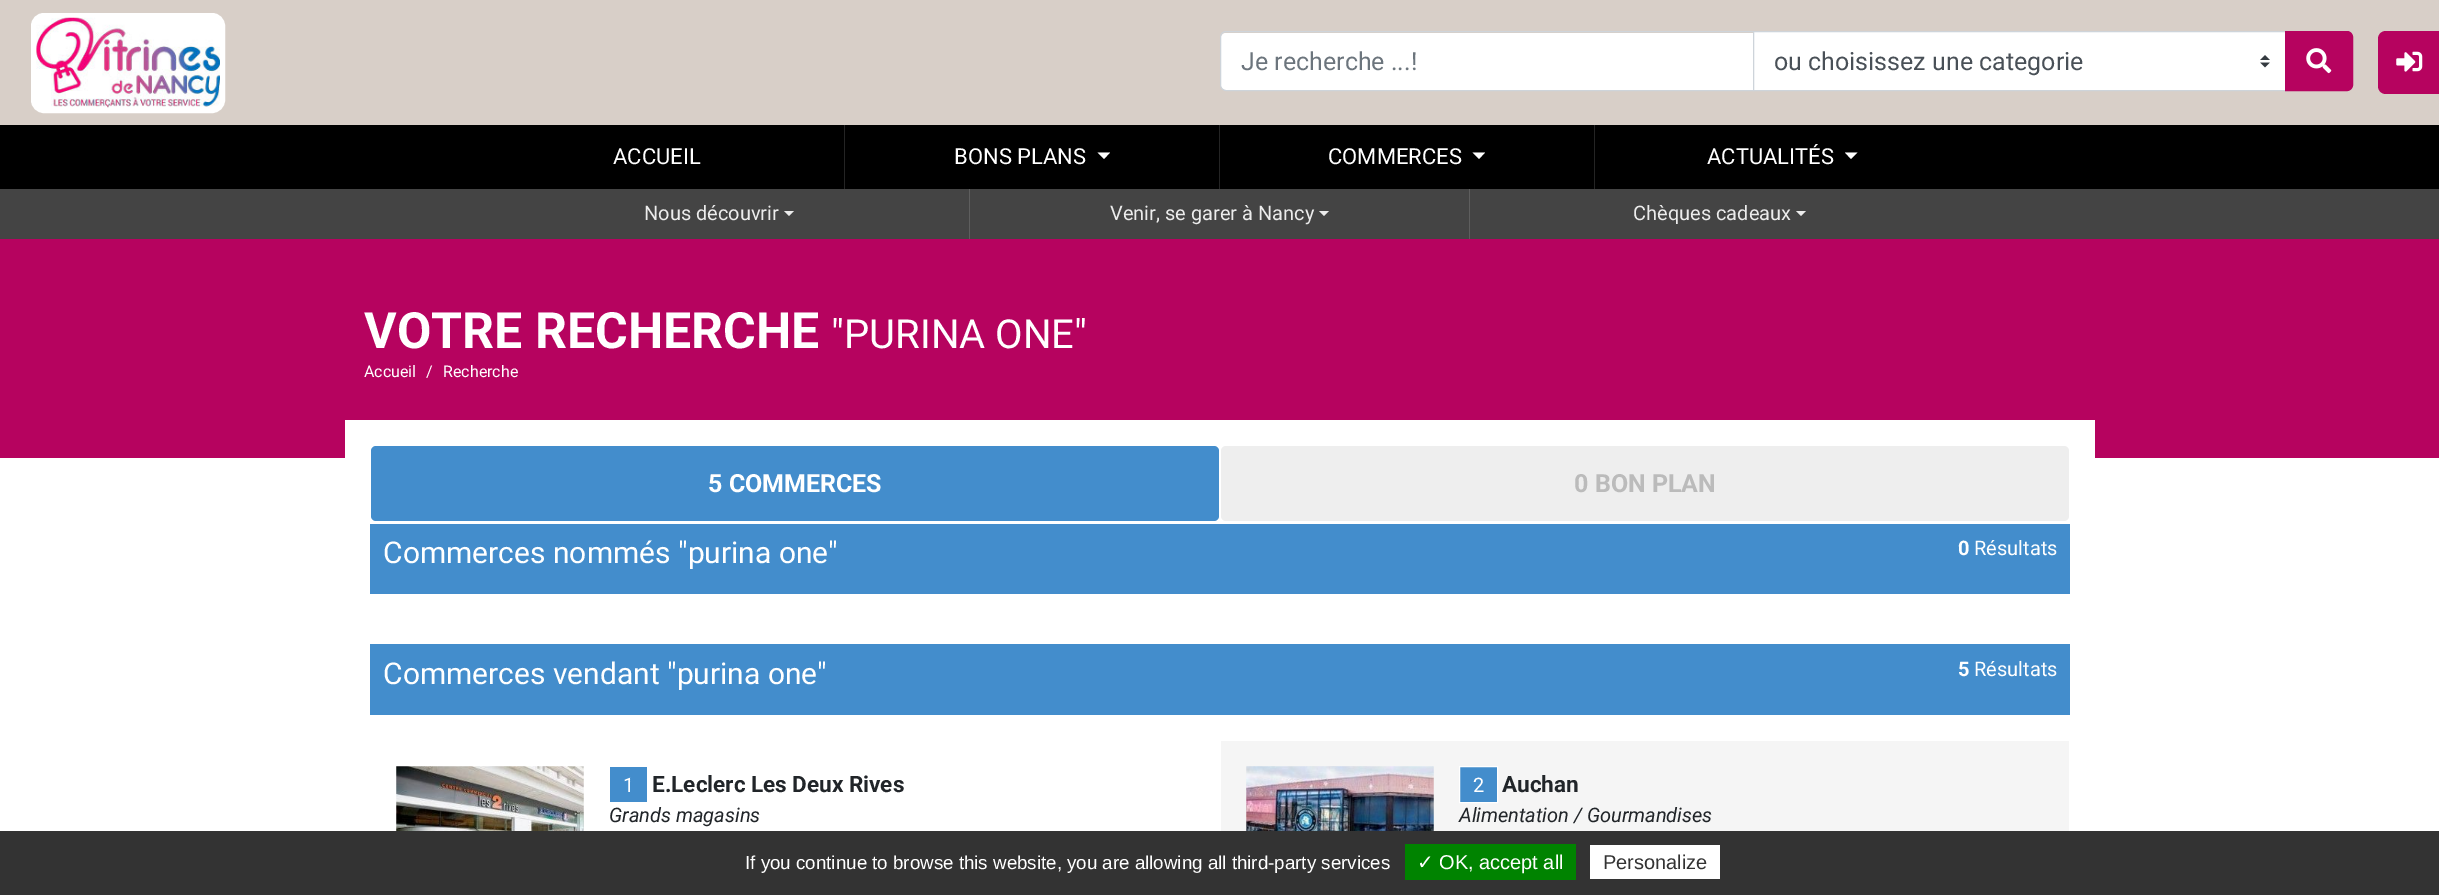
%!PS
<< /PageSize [2439 895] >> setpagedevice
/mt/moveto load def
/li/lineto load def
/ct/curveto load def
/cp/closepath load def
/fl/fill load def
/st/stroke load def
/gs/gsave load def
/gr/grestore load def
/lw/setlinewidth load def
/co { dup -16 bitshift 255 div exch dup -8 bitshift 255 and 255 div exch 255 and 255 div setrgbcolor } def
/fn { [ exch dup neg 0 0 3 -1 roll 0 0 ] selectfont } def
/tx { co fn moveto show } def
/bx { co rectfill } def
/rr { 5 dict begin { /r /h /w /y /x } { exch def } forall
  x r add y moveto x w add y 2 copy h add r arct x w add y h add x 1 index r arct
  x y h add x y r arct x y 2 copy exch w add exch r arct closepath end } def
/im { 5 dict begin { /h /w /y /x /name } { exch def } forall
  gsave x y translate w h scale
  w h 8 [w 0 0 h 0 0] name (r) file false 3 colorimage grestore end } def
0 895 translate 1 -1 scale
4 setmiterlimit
0 0 2439 895 16#FFFFFF bx
0 0 2439 125 16#D8CFC8 bx
16#FFFFFF co
33.5 15.5 189 95 10.5 rr gs fl gr
5 lw
st
(media/1.raw) 36 17 184 91 im
1226 33 mt 1753 33 li 1753 90 li 1226 90 li 1223 90 1221 88 1221 85 ct 1221 38 li 1221 35 1223 33 1226 33 ct cp fl
16#CED4DA co
1 lw
1226 31.5 mt 1753.5 31.5 li 1753.5 90.5 li 1226 90.5 li 1223 90.5 1220.5 88 1220.5 85 ct 1220.5 37 li 1220.5 34 1223 31.5 1226 31.5 ct cp st
1754 32 531 58 16#FFFFFF bx
(media/2.raw) 2260 55 10 13 im
16#CED4DA co
1753.5 31.5 532 59 rectstroke
16#B6035F co
2285.5 31.5 mt 2347 31.5 li 2350 31.5 2352.5 34 2352.5 37 ct 2352.5 85 li 2352.5 88 2350 90.5 2347 90.5 ct 2285.5 90.5 li cp gs fl gr
st
(media/3.raw) 2306 48 26 26 im
2386 31 mt 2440 31 li 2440 94 li 2386 94 li 2381.5 94 2378 90.5 2378 86 ct 2378 39 li 2378 34.5 2381.5 31 2386 31 ct cp fl
(media/4.raw) 2396 51 27 21 im
0 125 2439 64 16#000000 bx
844 125 1 64 16#242424 bx
1219 125 1 64 16#242424 bx
16#FFFFFF co
1097.5 152.5 mt 1110 152.5 li 1104 159 li cp fl
1594 125 1 64 16#242424 bx
16#FFFFFF co
1472.5 152.5 mt 1485 152.5 li 1479 159 li cp fl
1845 152.5 mt 1857.5 152.5 li 1851 159 li cp fl
0 189 2439 50 16#444444 bx
969 189 1 50 16#5E5E5E bx
16#ECECEC co
784 211 mt 794 211 li 789 216 li cp fl
1469 189 1 50 16#5E5E5E bx
16#ECECEC co
1319 211 mt 1329 211 li 1324 216 li cp fl
1796 211 mt 1806 211 li 1801 216 li cp fl
0 239 2439 219 16#B6035F bx
345 420 1750 38 16#FFFFFF bx
16#438DCC co
371 446 848 75 5 rr fl
16#EEEEEE co
1221 446 848 75 5 rr fl
370 524 1700 70 16#438DCC bx
370 644 1700 71 16#438DCC bx
(media/5.raw) 396 766 188 65 im
610 767 37 35 16#438DCC bx
1221 741 848 90 16#F5F5F5 bx
(media/6.raw) 1246 766 188 65 im
16#438DCC co
1459.5 766.5 mt 1497.5 766.5 li 1497.5 802.5 li 1459.5 802.5 li cp gs fl gr
16#FFFFFF co
st
0 831 2439 64 16#333333 bx
1405 844 171 36 16#008300 bx
1590 845 130 34 16#FFFFFF bx
(Je recherche ...!) 1241 70 /Roboto-Regular 25 16#6C757D tx
(ou choisissez une categorie) 1774 70 /Roboto-Regular 25 16#495057 tx
(ACCUEIL) 613 164 /Roboto-Regular 22 16#FFFFFF tx
(BONS PLANS) 954 164 /Roboto-Regular 22 16#FFFFFF tx
(COMMERCES) 1328 164 /Roboto-Regular 22 16#FFFFFF tx
(ACTUALITÉS) 1707 164 /Roboto-Regular 22 16#FFFFFF tx
(Nous découvrir) 644 220 /Roboto-Regular 20 16#ECECEC tx
(Venir, se garer à Nancy) 1110 220 /Roboto-Regular 20 16#ECECEC tx
(Chèques cadeaux) 1633 220 /Roboto-Regular 20 16#ECECEC tx
(VOTRE RECHERCHE) 364 348 /Roboto-Bold 50 16#FFFFFF tx
("PURINA ONE") 831 348 /Roboto-Regular 40 16#FFFFFF tx
(Accueil) 364 377 /Roboto-Regular 16 16#FFFFFF tx
(/) 426 377 /Roboto-Regular 16 16#FFFFFF tx
(Recherche) 443 377 /Roboto-Regular 16 16#FFFFFF tx
(5 COMMERCES) 708 492 /Roboto-Bold 25 16#FFFFFF tx
(0 BON PLAN) 1574 492 /Roboto-Bold 25 16#BBBBBB tx
(Commerces nommés "purina one") 383 563 /Roboto-Regular 30 16#FFFFFF tx
(0) 1958 555 /Roboto-Bold 20 16#FFFFFF tx
(Résultats) 1974 555 /Roboto-Regular 20 16#FFFFFF tx
(Commerces vendant "purina one") 383 684 /Roboto-Regular 30 16#FFFFFF tx
(5) 1958 676 /Roboto-Bold 20 16#FFFFFF tx
(Résultats) 1974 676 /Roboto-Regular 20 16#FFFFFF tx
(1) 623 792 /Roboto-Regular 20 16#FFFFFF tx
(E.Leclerc Les Deux Rives) 652 792 /Roboto-Bold 22.5 16#212529 tx
(Grands magasins) 609 822 /Roboto-Italic 20 16#212529 tx
(2) 1473 792 /Roboto-Regular 20 16#FFFFFF tx
(Auchan) 1502 792 /Roboto-Bold 22.5 16#212529 tx
(Alimentation / Gourmandises) 1459 822 /Roboto-Italic 20 16#212529 tx
(If you continue to browse this website, you are allowing all third-party services) 745 869 /LiberationSans-Regular 18.75 16#FFFFFF tx
(✓) 1417 869 /DejaVuSans-Regular 20 16#FFFFFF tx
(OK, accept all) 1439 869 /LiberationSans-Regular 20 16#FFFFFF tx
(Personalize) 1603 869 /LiberationSans-Regular 20 16#333333 tx
showpage
